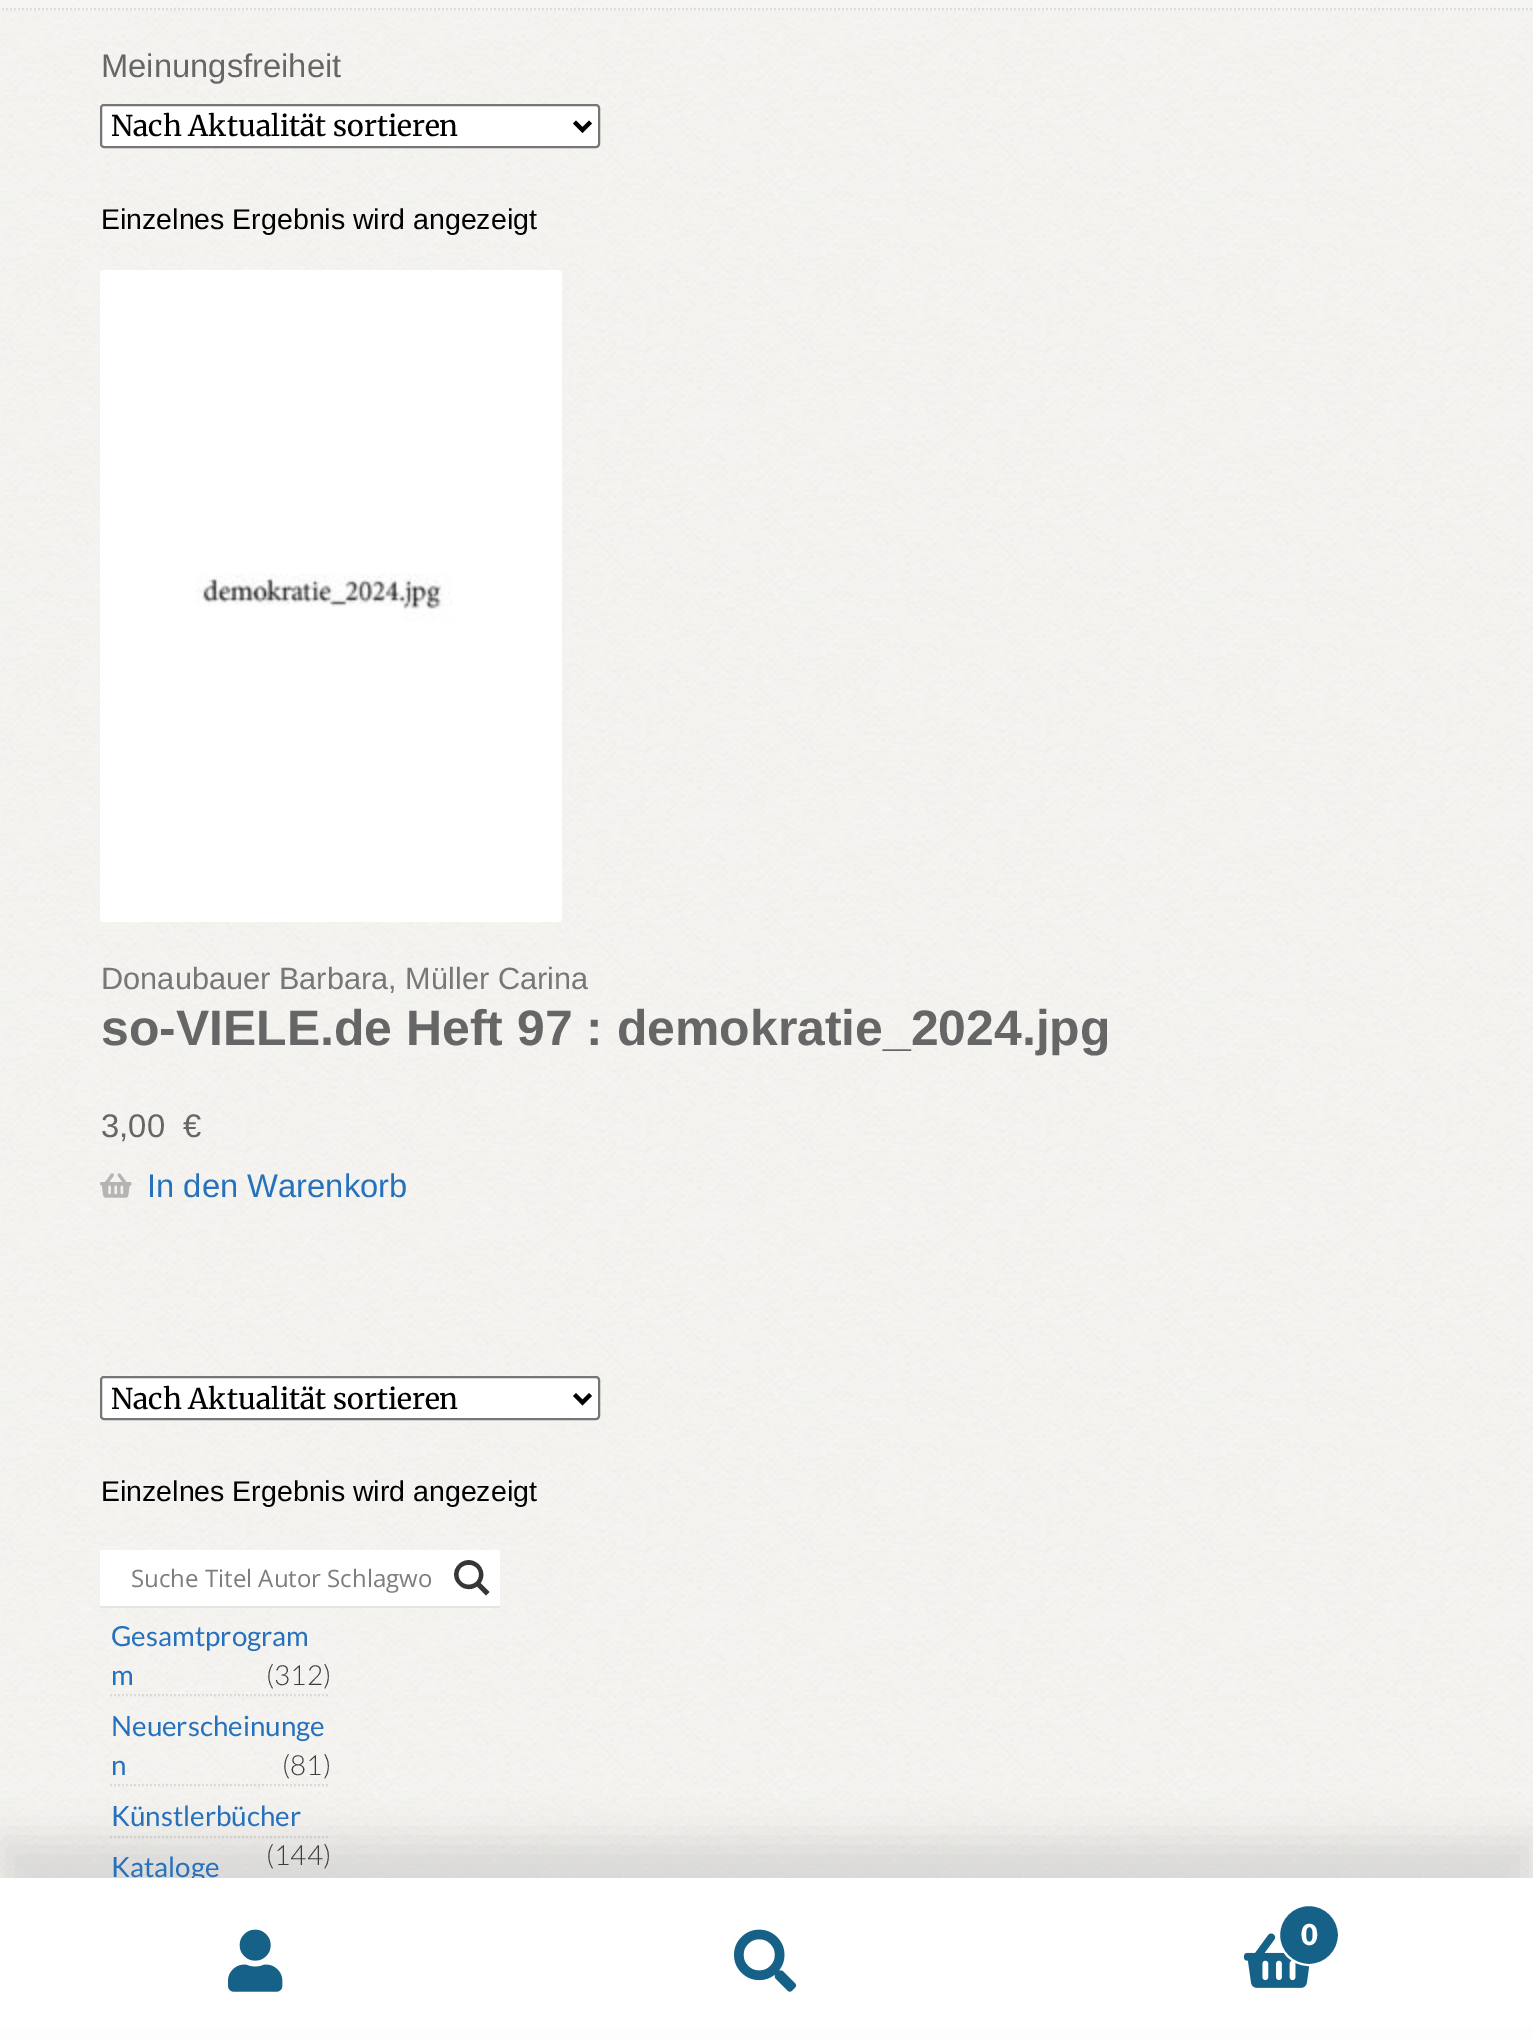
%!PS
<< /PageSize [1533 2042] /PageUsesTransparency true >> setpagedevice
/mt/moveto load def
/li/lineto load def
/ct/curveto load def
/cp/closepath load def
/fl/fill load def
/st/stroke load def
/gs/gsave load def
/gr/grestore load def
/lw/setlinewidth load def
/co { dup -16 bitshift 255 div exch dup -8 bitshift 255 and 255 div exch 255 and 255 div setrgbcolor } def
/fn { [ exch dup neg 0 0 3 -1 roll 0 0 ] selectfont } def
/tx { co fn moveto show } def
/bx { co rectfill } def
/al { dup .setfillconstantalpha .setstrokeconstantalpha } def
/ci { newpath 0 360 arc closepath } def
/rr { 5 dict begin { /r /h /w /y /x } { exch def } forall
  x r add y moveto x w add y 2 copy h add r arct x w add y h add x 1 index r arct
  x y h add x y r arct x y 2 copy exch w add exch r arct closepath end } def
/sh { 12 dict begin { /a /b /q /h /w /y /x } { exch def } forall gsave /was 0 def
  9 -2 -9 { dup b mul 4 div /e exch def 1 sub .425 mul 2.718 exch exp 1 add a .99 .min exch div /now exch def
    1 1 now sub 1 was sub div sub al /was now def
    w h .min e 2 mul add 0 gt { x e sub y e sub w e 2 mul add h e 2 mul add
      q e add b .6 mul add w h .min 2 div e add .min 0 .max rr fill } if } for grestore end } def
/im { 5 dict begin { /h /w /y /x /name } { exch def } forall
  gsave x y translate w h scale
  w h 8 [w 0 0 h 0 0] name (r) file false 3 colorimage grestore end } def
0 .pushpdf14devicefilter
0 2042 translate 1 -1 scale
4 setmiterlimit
0 0 1533 2042 16#FFFFFF bx
(media/1.raw) 0 0 1533 1878 im
0.2 al
0 0 1533 10 16#FFFFFF bx
0.1 al
16#000000 co
2 lw
[2 2] 0 setdash
-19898 9 mt 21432 9 li st
1 al
16#FFFFFF co
101 105 498 42 3 rr gs fl gr
16#767676 co
[] 0 setdash
st
16#000000 co
4 lw
574.5 122 mt 582.5 130 li 590.5 122 li st
(media/2.raw) 100 270 462 652 im
(media/3.raw) 100 1173 32 25 im
16#FFFFFF co
101 1377 498 42 3 rr gs fl gr
16#767676 co
2 lw
st
16#000000 co
4 lw
574.5 1394.5 mt 582.5 1402.5 li 590.5 1394.5 li st
100 1606 400 2 16#E4E4E4 bx
100 1550 400 56 16#FFFFFF bx
16#363636 co
489.5 1592 mt 480.5 1583 li 490.5 1569 471.5 1552 458.5 1564.5 ct 446 1577 463 1596 477 1586.5 ct 486 1595.5 li cp 458.5 1574.5 mt 458.5 1561.5 479 1561.5 479 1574.5 ct 479 1588 458.5 1588 458.5 1574.5 ct cp fl
0.1 al
16#000000 co
2 lw
[2 2] 0 setdash
110 1695 mt 330 1695 li st
110 1785 mt 330 1785 li st
110 1837 mt 330 1837 li st
1 al
0 1840 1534 164 0 19 .1 sh
(Meinungsfreiheit) 101 77 /LiberationSans-Regular 32.75 16#666666 tx
(Nach Aktualität sortieren) 111 136 /Merriweather-Regular 28.5 16#000000 tx
(Einzelnes Ergebnis wird angezeigt) 101 229 /LiberationSans-Regular 28.5 16#000000 tx
(Donaubauer Barbara, Müller Carina) 101 989 /LiberationSans-Regular 30.75 16#777777 tx
(so-VIELE.de Heft 97 : demokratie_2024.jpg) 101 1045 /LiberationSans-Bold 49.9 16#666666 tx
(3,00) 101 1137 /LiberationSans-Regular 32.75 16#666666 tx
(€) 183 1137 /LiberationSans-Regular 32.75 16#666666 tx
(In den Warenkorb) 147 1197 /LiberationSans-Regular 32.75 16#2571BC tx
(Nach Aktualität sortieren) 111 1409 /Merriweather-Regular 28.5 16#000000 tx
(Einzelnes Ergebnis wird angezeigt) 101 1501 /LiberationSans-Regular 28.5 16#000000 tx
(Suche Titel Autor Schlagwo) 131 1587 /OpenSans-Regular 24 16#7D7D7D tx
(Gesamtprogram) 111 1646 /Lato-Regular 27.75 16#2571BC tx
(m) 111 1685 /Lato-Regular 27.75 16#2571BC tx
(\(312\)) 266 1685 /Lato-Light 27.75 16#3D3D3C tx
(Neuerscheinunge) 111 1736 /Lato-Regular 27.75 16#2571BC tx
(n) 111 1775 /Lato-Regular 27.75 16#2571BC tx
(\(81\)) 282 1775 /Lato-Light 27.75 16#3D3D3C tx
(Künstlerbücher) 111 1826 /Lato-Regular 27.75 16#2571BC tx
(\(144\)) 266 1865 /Lato-Light 27.75 16#3D3D3C tx
(Kataloge) 111 1877 /Lato-Regular 27.75 16#2571BC tx
0 1878 1533 150 16#FFFFFF bx
(media/4.raw) 228 1929 55 63 im
(media/5.raw) 734 1929 63 63 im
(media/6.raw) 1244 1933 66 55 im
16#156187 co
1309 1935 30 ci gs fl gr
16#FFFFFF co
[] 0 setdash
st
(0) 1301 1945 /Lato-Black 29 16#FFFFFF tx
.poppdf14devicefilter showpage
